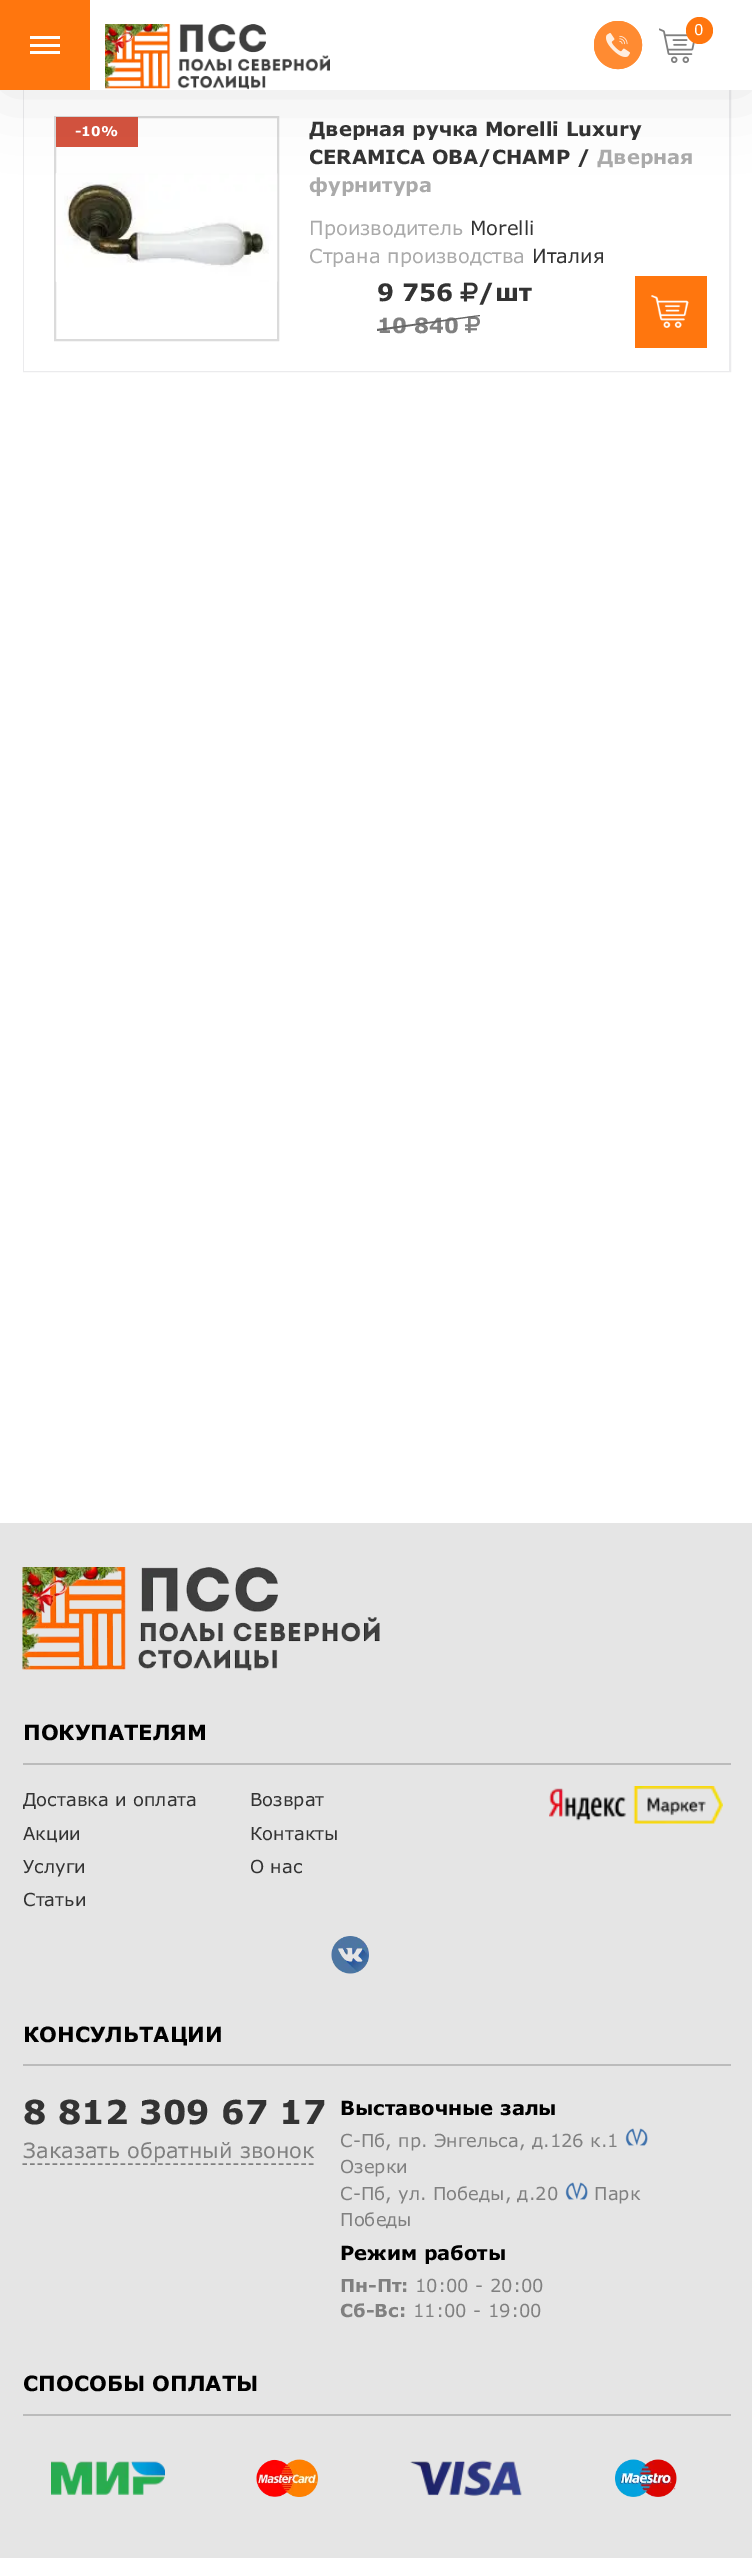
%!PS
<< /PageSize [752 2558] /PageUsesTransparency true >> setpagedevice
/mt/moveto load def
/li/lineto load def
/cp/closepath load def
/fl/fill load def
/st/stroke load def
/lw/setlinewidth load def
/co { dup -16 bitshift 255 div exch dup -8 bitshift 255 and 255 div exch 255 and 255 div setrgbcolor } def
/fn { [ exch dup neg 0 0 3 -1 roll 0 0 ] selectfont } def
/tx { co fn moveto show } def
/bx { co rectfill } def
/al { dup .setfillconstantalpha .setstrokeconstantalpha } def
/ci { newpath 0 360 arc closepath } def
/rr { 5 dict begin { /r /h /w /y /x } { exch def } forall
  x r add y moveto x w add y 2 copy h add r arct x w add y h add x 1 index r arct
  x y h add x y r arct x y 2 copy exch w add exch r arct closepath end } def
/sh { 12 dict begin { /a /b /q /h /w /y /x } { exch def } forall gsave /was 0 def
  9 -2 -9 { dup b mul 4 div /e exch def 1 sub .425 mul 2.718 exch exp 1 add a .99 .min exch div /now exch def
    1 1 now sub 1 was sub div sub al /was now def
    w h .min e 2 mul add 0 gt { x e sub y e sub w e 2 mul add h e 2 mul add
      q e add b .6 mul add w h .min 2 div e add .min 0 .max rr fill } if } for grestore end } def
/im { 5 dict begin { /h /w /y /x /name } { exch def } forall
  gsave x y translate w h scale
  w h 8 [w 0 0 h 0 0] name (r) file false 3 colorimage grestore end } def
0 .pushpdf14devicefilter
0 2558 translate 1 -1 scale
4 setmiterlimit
0 0 752 2558 16#FFFFFF bx
16#EBEBED co
2 lw
24 85 706 286 rectstroke
24 90 705 281 16#FFFFFF bx
16#DBDBDB co
55 117 223 223 rectstroke
56 117 82 30 16#D5533E bx
(media/4.raw) 55 173 223 109 im
16#000000 co
0 0 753 90 0 37.5 .1 sh
90 0 662 90 16#FFFFFF bx
0 0 90 90 16#FF760E bx
30 44 30 3 16#FFFFFF bx
30 36 30 3 16#FFFFFF bx
30 51 30 3 16#FFFFFF bx
(media/1.raw) 105 24 225 66 im
16#FF8B32 co
618 45 24 ci fl
(media/2.raw) 606 33 24 24 im
618 45 23 ci st
(media/3.raw) 659 28 36 36 im
16#FF760E co
699.5 30.5 13.5 ci fl
(media/5.raw) 460 282 18 20 im
(media/6.raw) 465 316 15 17 im
635 276 72 72 16#FF760E bx
(media/7.raw) 651 295 38 33 im
0 1523 752 1035 16#E5E5E5 bx
(media/8.raw) 22 1567 358 104 im
23 1763 708 2 16#BBBBBB bx
(media/9.raw) 549 1786 174 38 im
(media/10.raw) 331 1936 38 38 im
23 2064 708 2 16#BBBBBB bx
16#808080 co
1.5 lw
[4.5 3.04] 0 setdash
22.5 2164 mt 313.5 2164 li st
(media/11.raw) 625 2128 23 18 im
(media/11.raw) 565 2182 23 18 im
23 2414 708 2 16#BBBBBB bx
(media/12.raw) 51 2461 114 34 im
(media/13.raw) 256 2459 62 38 im
(media/14.raw) 410 2460 112 36 im
(media/15.raw) 615 2459 62 38 im
(0) 694 35 /Verdana-Regular 15 16#FFFFFF tx
(-10%) 75 136 /Verdana-Bold 13.5 16#FFFFFF tx
(Дверная ручка Morelli Luxury) 309 136 /Verdana-Bold 19.5 16#333333 tx
(CERAMICA OBA/CHAMP /) 309 164 /Verdana-Bold 19.5 16#333333 tx
(Дверная) 597 164 /Verdana-Bold 19.5 16#AAAAAA tx
(фурнитура) 309 192 /Verdana-Bold 19.5 16#AAAAAA tx
(Производитель) 309 235 /Verdana-Regular 19.5 16#AAAAAA tx
(Morelli) 470 235 /Verdana-Regular 19.5 16#333333 tx
(Страна производства) 309 263 /Verdana-Regular 19.5 16#AAAAAA tx
(Италия) 532 263 /Verdana-Regular 19.5 16#333333 tx
(9 756) 377 301 /Verdana-Bold 24 16#333333 tx
(/шт) 478 301 /Verdana-Bold 24 16#333333 tx
(10 840) 377 333 /Verdana-Bold 21 16#808080 tx
16#656565 co
377 329 mt 480 315 li 480 316 li 377 331 li cp fl
(ПОКУПАТЕЛЯМ) 23 1740 /Verdana-Bold 21 16#000000 tx
(Доставка и оплата) 23 1806 /Verdana-Regular 18 16#333333 tx
(Возврат) 250 1806 /Verdana-Regular 18 16#333333 tx
(Акции) 23 1840 /Verdana-Regular 18 16#333333 tx
(Контакты) 250 1840 /Verdana-Regular 18 16#333333 tx
(Услуги) 23 1873 /Verdana-Regular 18 16#333333 tx
(О нас) 250 1873 /Verdana-Regular 18 16#333333 tx
(Статьи) 23 1906 /Verdana-Regular 18 16#333333 tx
(КОНСУЛЬТАЦИИ) 23 2042 /Verdana-Bold 21 16#000000 tx
(8 812 309 67 17) 23 2124 /Verdana-Bold 33 16#333333 tx
(Заказать обратный звонок) 23 2158 /Verdana-Regular 21 16#808080 tx
(Выставочные залы) 340 2115 /Verdana-Bold 19.5 16#000000 tx
(С-Пб, пр. Энгельса, д.126 к.1) 340 2147 /Verdana-Regular 18 16#808080 tx
(Озерки) 340 2173 /Verdana-Regular 18 16#808080 tx
(С-Пб, ул. Победы, д.20) 340 2200 /Verdana-Regular 18 16#808080 tx
(Парк) 594 2200 /Verdana-Regular 18 16#808080 tx
(Победы) 340 2226 /Verdana-Regular 18 16#808080 tx
(Режим работы) 340 2260 /Verdana-Bold 19.5 16#000000 tx
(Пн-Пт:) 340 2292 /Verdana-Bold 18 16#808080 tx
(10:00 - 20:00) 415 2292 /Verdana-Regular 18 16#808080 tx
(Сб-Вс:) 340 2317 /Verdana-Bold 18 16#808080 tx
(11:00 - 19:00) 413 2317 /Verdana-Regular 18 16#808080 tx
(СПОСОБЫ ОПЛАТЫ) 23 2391 /Verdana-Bold 21 16#000000 tx
.poppdf14devicefilter showpage
